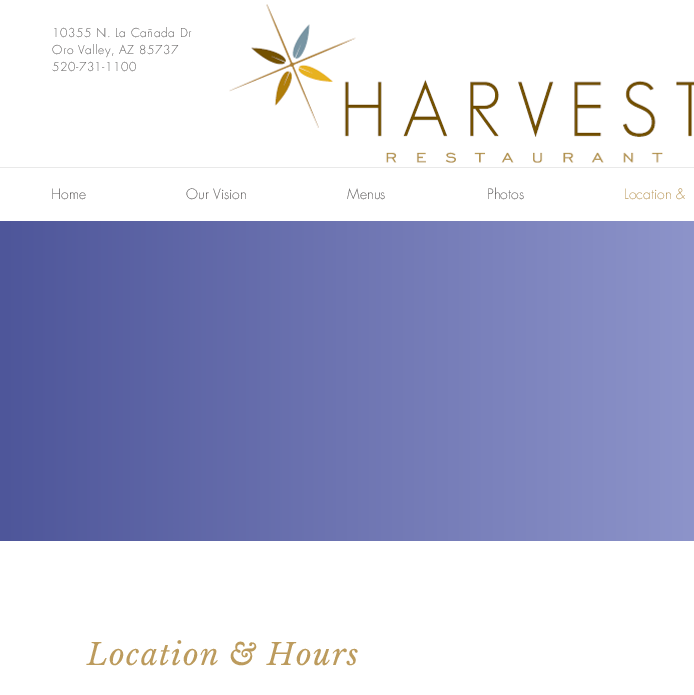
%!PS
<< /PageSize [694 695] >> setpagedevice
/mt/moveto load def
/li/lineto load def
/cp/closepath load def
/gs/gsave load def
/gr/grestore load def
/co { dup -16 bitshift 255 div exch dup -8 bitshift 255 and 255 div exch 255 and 255 div setrgbcolor } def
/fn { [ exch dup neg 0 0 3 -1 roll 0 0 ] selectfont } def
/tx { co fn moveto show } def
/bx { co rectfill } def
/im { 5 dict begin { /h /w /y /x /name } { exch def } forall
  gsave x y translate w h scale
  w h 8 [w 0 0 h 0 0] name (r) file false 3 colorimage grestore end } def
0 695 translate 1 -1 scale
4 setmiterlimit
0 0 694 695 16#FFFFFF bx
(media/1.raw) 229 4 465 159 im
0 167 694 1 16#E9E9E9 bx
gs 0 221 mt 694 221 li 694 541 li 0 541 li cp clip newpath
<< /ShadingType 2 /ColorSpace /DeviceRGB /Coords [0 381 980 381] /Extend [true true] /Function << /FunctionType 2 /Domain [0 1] /C0 [.306 .337 .604] /C1 [.655 .678 .867] /N 1 >> >> shfill gr
/futura-Light 12 fn
16#605E5E co
52 37 mt .5 0 (10355 N. La Cañada Dr) ashow
52 54 mt .5 0 (Oro Valley, AZ 85737) ashow
52 71 mt .5 0 (520-731-1100) ashow
(Home) 51 199 /futura-Light 14 16#605E5E tx
(Our Vision) 186 199 /futura-Light 14 16#605E5E tx
(Menus) 347 199 /futura-Light 14 16#605E5E tx
(Photos) 487 199 /futura-Light 14 16#605E5E tx
(Location &) 624 199 /futura-Light 14 16#BC9B5D tx
/LibreBaskerville-Italic 30 fn
87 665 mt 1.25 0 (Location & Hours) ashow
showpage
